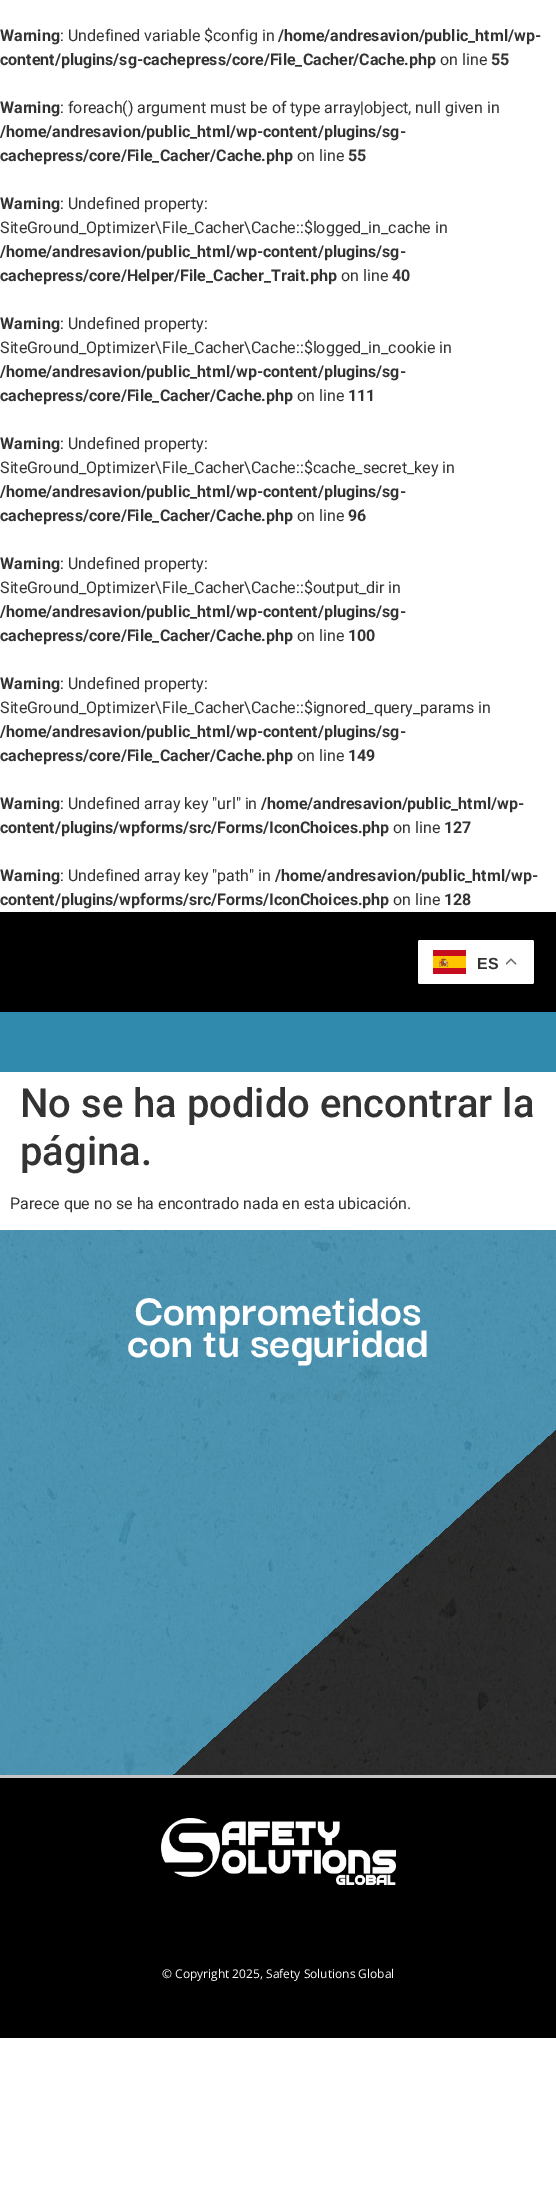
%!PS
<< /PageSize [556 2208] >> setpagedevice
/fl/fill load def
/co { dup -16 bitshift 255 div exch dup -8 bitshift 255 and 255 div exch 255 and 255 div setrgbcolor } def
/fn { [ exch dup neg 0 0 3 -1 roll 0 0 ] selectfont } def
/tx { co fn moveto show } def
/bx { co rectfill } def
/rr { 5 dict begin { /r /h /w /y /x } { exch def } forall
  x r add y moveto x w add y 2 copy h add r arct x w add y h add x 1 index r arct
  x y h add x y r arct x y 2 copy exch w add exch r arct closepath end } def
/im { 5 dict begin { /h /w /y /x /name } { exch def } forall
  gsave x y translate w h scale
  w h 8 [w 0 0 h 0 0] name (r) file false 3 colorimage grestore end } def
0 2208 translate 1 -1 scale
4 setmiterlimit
0 0 556 2208 16#FFFFFF bx
0 912 556 100 16#000000 bx
16#FFFFFF co
418 940 116 44 2 rr fl
(media/1.raw) 433 950 33 24 im
(media/2.raw) 506 958 11 7 im
0 1012 556 60 16#2F8AAE bx
(media/3.raw) 0 1230 556 545 im
0 1775 556 3 16#C5C5C5 bx
0 1778 556 260 16#000000 bx
(media/4.raw) 161 1818 235 67 im
(Warning) 0 41 /Roboto-Bold 16 16#333333 tx
(: Undefined variable $config in) 60 41 /Roboto-Regular 16 16#333333 tx
(/home/andresavion/public_html/wp-) 278 41 /Roboto-Bold 16 16#333333 tx
(content/plugins/sg-cachepress/core/File_Cacher/Cache.php) 0 65 /Roboto-Bold 16 16#333333 tx
(on line) 440 65 /Roboto-Regular 16 16#333333 tx
(55) 491 65 /Roboto-Bold 16 16#333333 tx
(Warning) 0 113 /Roboto-Bold 16 16#333333 tx
(: foreach\(\) argument must be of type array|object, null given in) 60 113 /Roboto-Regular 16 16#333333 tx
(/home/andresavion/public_html/wp-content/plugins/sg-) 0 137 /Roboto-Bold 16 16#333333 tx
(cachepress/core/File_Cacher/Cache.php) 0 161 /Roboto-Bold 16 16#333333 tx
(on line) 297 161 /Roboto-Regular 16 16#333333 tx
(55) 348 161 /Roboto-Bold 16 16#333333 tx
(Warning) 0 209 /Roboto-Bold 16 16#333333 tx
(: Undefined property:) 60 209 /Roboto-Regular 16 16#333333 tx
(SiteGround_Optimizer\\File_Cacher\\Cache::$logged_in_cache in) 0 233 /Roboto-Regular 16 16#333333 tx
(/home/andresavion/public_html/wp-content/plugins/sg-) 0 257 /Roboto-Bold 16 16#333333 tx
(cachepress/core/Helper/File_Cacher_Trait.php) 0 281 /Roboto-Bold 16 16#333333 tx
(on line) 341 281 /Roboto-Regular 16 16#333333 tx
(40) 392 281 /Roboto-Bold 16 16#333333 tx
(Warning) 0 329 /Roboto-Bold 16 16#333333 tx
(: Undefined property:) 60 329 /Roboto-Regular 16 16#333333 tx
(SiteGround_Optimizer\\File_Cacher\\Cache::$logged_in_cookie in) 0 353 /Roboto-Regular 16 16#333333 tx
(/home/andresavion/public_html/wp-content/plugins/sg-) 0 377 /Roboto-Bold 16 16#333333 tx
(cachepress/core/File_Cacher/Cache.php) 0 401 /Roboto-Bold 16 16#333333 tx
(on line) 297 401 /Roboto-Regular 16 16#333333 tx
(111) 348 401 /Roboto-Bold 16 16#333333 tx
(Warning) 0 449 /Roboto-Bold 16 16#333333 tx
(: Undefined property:) 60 449 /Roboto-Regular 16 16#333333 tx
(SiteGround_Optimizer\\File_Cacher\\Cache::$cache_secret_key in) 0 473 /Roboto-Regular 16 16#333333 tx
(/home/andresavion/public_html/wp-content/plugins/sg-) 0 497 /Roboto-Bold 16 16#333333 tx
(cachepress/core/File_Cacher/Cache.php) 0 521 /Roboto-Bold 16 16#333333 tx
(on line) 297 521 /Roboto-Regular 16 16#333333 tx
(96) 348 521 /Roboto-Bold 16 16#333333 tx
(Warning) 0 569 /Roboto-Bold 16 16#333333 tx
(: Undefined property:) 60 569 /Roboto-Regular 16 16#333333 tx
(SiteGround_Optimizer\\File_Cacher\\Cache::$output_dir in) 0 593 /Roboto-Regular 16 16#333333 tx
(/home/andresavion/public_html/wp-content/plugins/sg-) 0 617 /Roboto-Bold 16 16#333333 tx
(cachepress/core/File_Cacher/Cache.php) 0 641 /Roboto-Bold 16 16#333333 tx
(on line) 297 641 /Roboto-Regular 16 16#333333 tx
(100) 348 641 /Roboto-Bold 16 16#333333 tx
(Warning) 0 689 /Roboto-Bold 16 16#333333 tx
(: Undefined property:) 60 689 /Roboto-Regular 16 16#333333 tx
(SiteGround_Optimizer\\File_Cacher\\Cache::$ignored_query_params in) 0 713 /Roboto-Regular 16 16#333333 tx
(/home/andresavion/public_html/wp-content/plugins/sg-) 0 737 /Roboto-Bold 16 16#333333 tx
(cachepress/core/File_Cacher/Cache.php) 0 761 /Roboto-Bold 16 16#333333 tx
(on line) 297 761 /Roboto-Regular 16 16#333333 tx
(149) 348 761 /Roboto-Bold 16 16#333333 tx
(Warning) 0 809 /Roboto-Bold 16 16#333333 tx
(: Undefined array key "url" in) 60 809 /Roboto-Regular 16 16#333333 tx
(/home/andresavion/public_html/wp-) 261 809 /Roboto-Bold 16 16#333333 tx
(content/plugins/wpforms/src/Forms/IconChoices.php) 0 833 /Roboto-Bold 16 16#333333 tx
(on line) 393 833 /Roboto-Regular 16 16#333333 tx
(127) 444 833 /Roboto-Bold 16 16#333333 tx
(Warning) 0 881 /Roboto-Bold 16 16#333333 tx
(: Undefined array key "path" in) 60 881 /Roboto-Regular 16 16#333333 tx
(/home/andresavion/public_html/wp-) 275 881 /Roboto-Bold 16 16#333333 tx
(content/plugins/wpforms/src/Forms/IconChoices.php) 0 905 /Roboto-Bold 16 16#333333 tx
(on line) 393 905 /Roboto-Regular 16 16#333333 tx
(128) 444 905 /Roboto-Bold 16 16#333333 tx
(ES) 477 969 /LiberationSans-Bold 16 16#333333 tx
(No se ha podido encontrar la) 20 1117 /Roboto-Medium 40 16#333333 tx
(página.) 20 1165 /Roboto-Medium 40 16#333333 tx
(Parece que no se ha encontrado nada en esta ubicación.) 10 1209 /Roboto-Regular 16 16#333333 tx
(Comprometidos) 135 1325 /DarkerGrotesque-Light 47 16#FFFFFF tx
(con tu seguridad) 127 1357 /DarkerGrotesque-Light 47 16#FFFFFF tx
(© Copyright 2025, Safety Solutions Global) 162 1978 /OpenSans-Regular 12 16#FFFFFF tx
showpage
